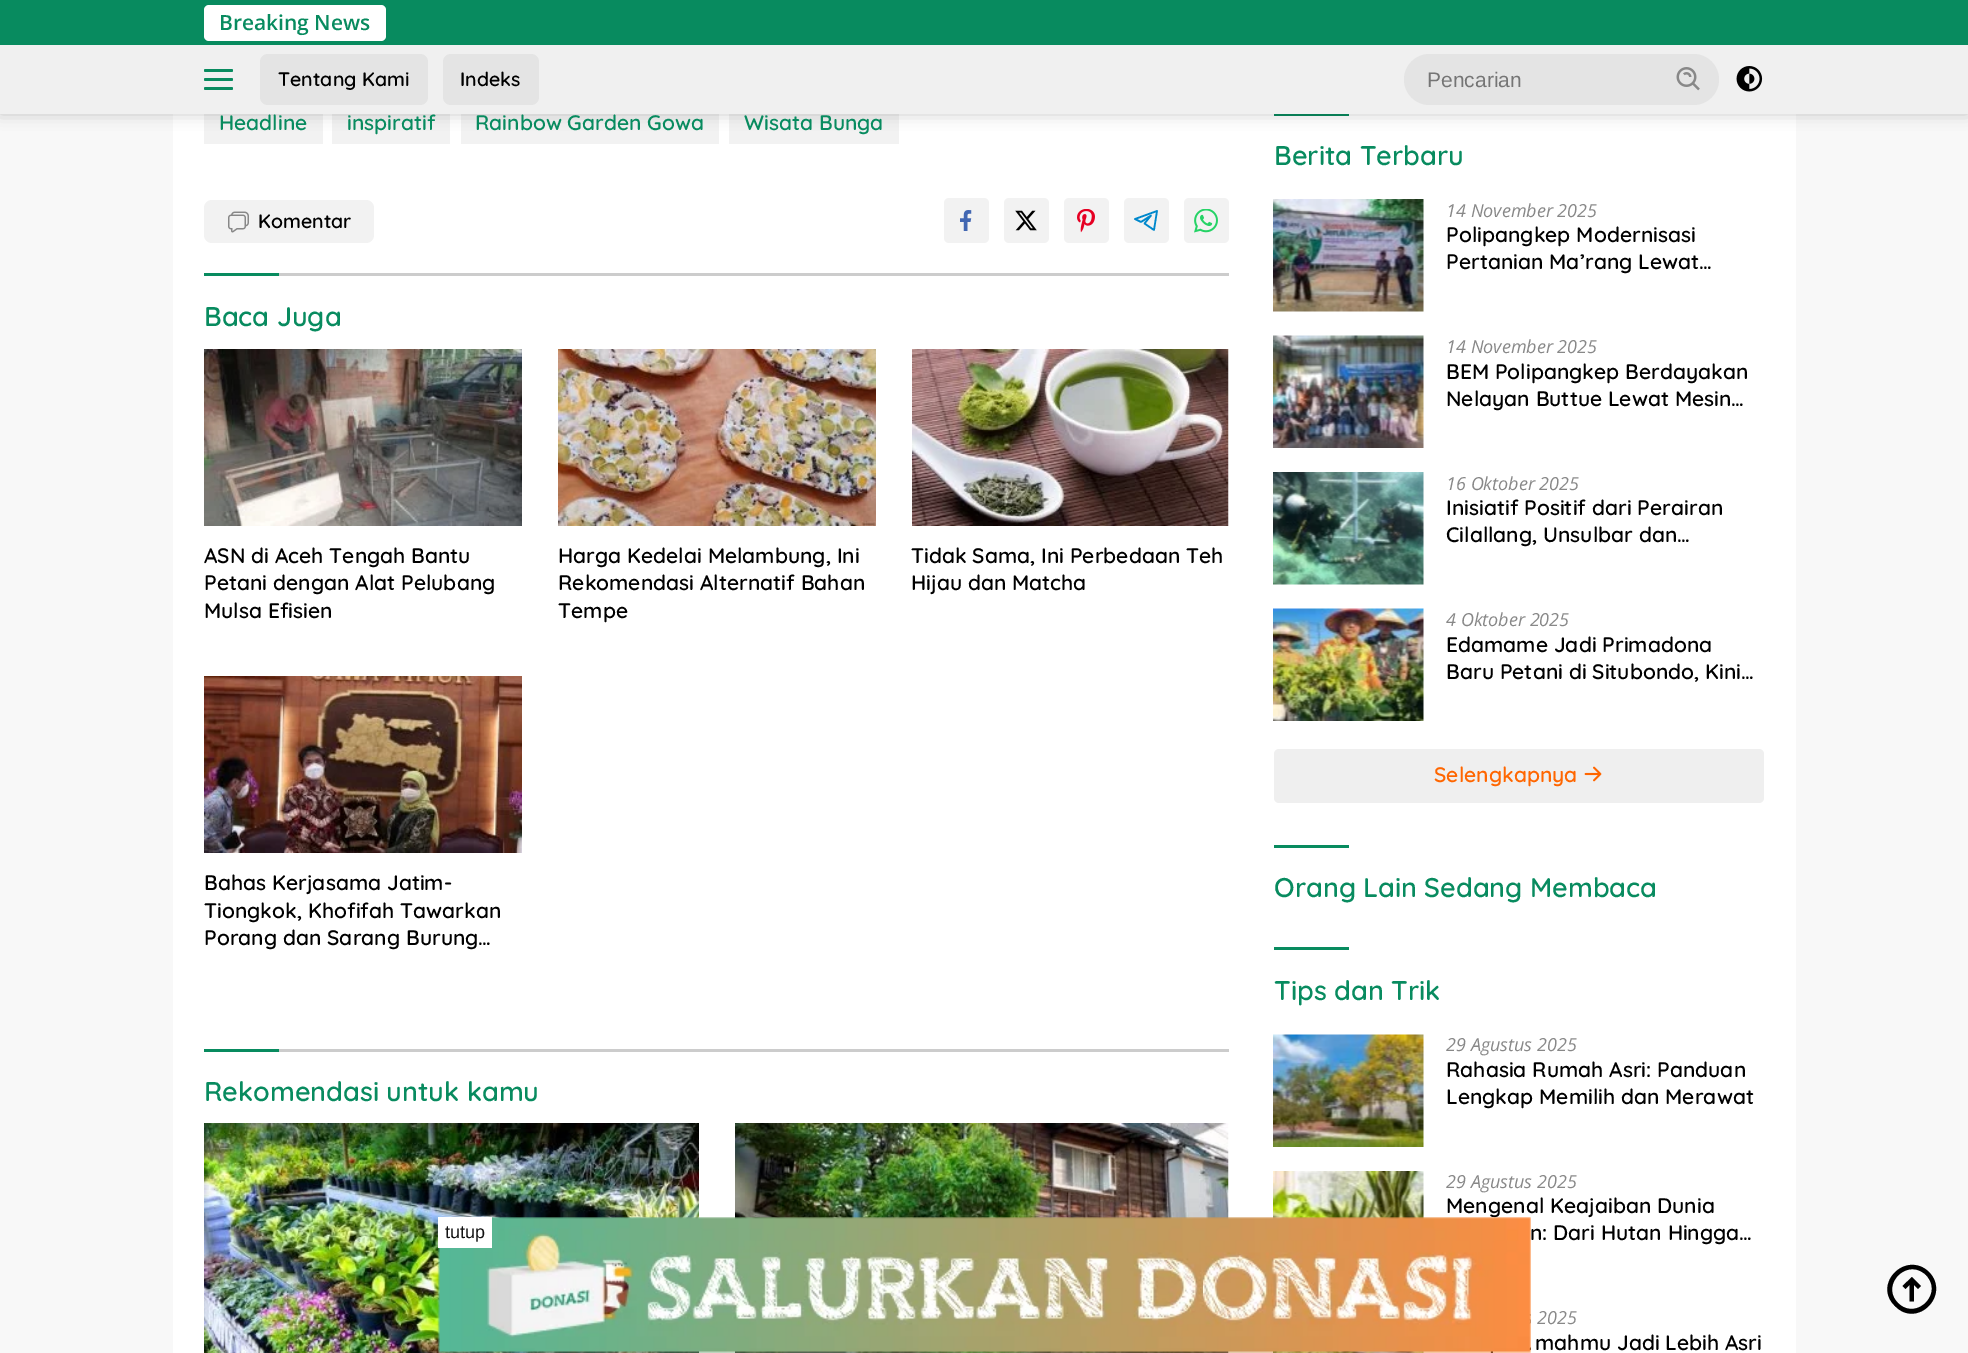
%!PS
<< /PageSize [1968 1353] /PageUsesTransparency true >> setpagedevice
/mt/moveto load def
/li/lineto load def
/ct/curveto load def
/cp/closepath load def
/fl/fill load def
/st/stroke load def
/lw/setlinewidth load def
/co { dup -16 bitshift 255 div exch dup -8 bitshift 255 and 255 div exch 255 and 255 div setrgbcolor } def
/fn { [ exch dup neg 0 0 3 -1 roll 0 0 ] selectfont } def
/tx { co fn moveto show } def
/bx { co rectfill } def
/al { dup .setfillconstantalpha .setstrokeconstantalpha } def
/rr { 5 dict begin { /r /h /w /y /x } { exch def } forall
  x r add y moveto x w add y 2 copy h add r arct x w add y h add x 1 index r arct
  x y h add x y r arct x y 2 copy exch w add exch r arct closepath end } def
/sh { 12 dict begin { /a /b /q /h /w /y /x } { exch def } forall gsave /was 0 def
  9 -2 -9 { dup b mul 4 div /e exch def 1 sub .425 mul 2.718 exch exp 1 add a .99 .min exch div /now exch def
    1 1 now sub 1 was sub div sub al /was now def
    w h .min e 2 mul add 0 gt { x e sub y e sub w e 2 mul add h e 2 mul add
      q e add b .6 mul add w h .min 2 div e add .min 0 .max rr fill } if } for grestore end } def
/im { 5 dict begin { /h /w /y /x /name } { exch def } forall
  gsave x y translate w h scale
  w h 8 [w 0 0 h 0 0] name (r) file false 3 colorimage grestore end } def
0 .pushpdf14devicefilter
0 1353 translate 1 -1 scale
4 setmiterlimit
0 0 1968 1353 16#F8F8F8 bx
173 114 1623 1239 16#FFFFFF bx
204 114 119 30 16#F2F2F2 bx
332 114 118 30 16#F2F2F2 bx
461 114 258 30 16#F2F2F2 bx
729 114 170 30 16#F2F2F2 bx
1274 114 75 2 16#088B5F bx
16#000000 co
0 0 1968 114 0 7.5 .2 sh
0 45 1968 69 16#F0F0F0 bx
0 0 1968 45 16#088B5F bx
16#FFFFFF co
204 5 182 36 5 rr fl
16#088B5F co
204 69 29 3 1.5 rr fl
204 78 29 3 1.5 rr fl
204 87 29 3 1.5 rr fl
16#E4E4E4 co
260 54 168 51 8 rr fl
443 54 96 51 8 rr fl
1404 54 315 51 25.5 rr fl
(media/1.raw) 1676 67 24 24 im
(media/2.raw) 1736 66 27 26 im
16#F2F2F2 co
204 200 170 43 8 rr fl
(media/3.raw) 228 211 21 22 im
944 198 45 45 5 rr fl
(media/4.raw) 960 210 12 21 im
1004 198 45 45 5 rr fl
(media/5.raw) 1015 210 22 21 im
1064 198 45 45 5 rr fl
(media/6.raw) 1077 209 18 24 im
1124 198 45 45 5 rr fl
16#0088CC co
1.6 lw
1 setlinejoin
1157 211 mt 1135 219 li 1141 222 li 1151 215.5 li 1144.5 223.5 li 1154 230 li cp st
16#F2F2F2 co
1184 198 45 45 5 rr fl
(media/7.raw) 1194 209 24 24 im
279 273 950 3 16#CCCCCC bx
204 273 75 3 16#088B5F bx
(media/8.raw) 204 349 318 177 im
(media/9.raw) 558 349 318 177 im
(media/10.raw) 912 349 317 177 im
(media/11.raw) 204 676 318 177 im
279 1049 950 3 16#CCCCCC bx
204 1049 75 3 16#088B5F bx
(media/12.raw) 204 1123 495 230 im
(media/13.raw) 735 1123 494 230 im
(media/14.raw) 1273 199 151 113 im
(media/15.raw) 1273 335 151 113 im
(media/16.raw) 1273 472 151 113 im
(media/17.raw) 1273 608 151 113 im
16#EFEFEF co
1274 749 490 54 5 rr fl
(media/18.raw) 1584 766 18 16 im
1274 845 75 3 16#088B5F bx
1274 947 75 3 16#088B5F bx
(media/19.raw) 1273 1034 151 113 im
(media/20.raw) 1273 1171 151 48 im
(media/21.raw) 1273 1351 151 2 im
16#000000 co
1918 1289 mt 1921 1286 li 1912 1277 li 1902.5 1286 li 1905.5 1289 li 1909.5 1285 li 1909.5 1301.5 li 1914 1301.5 li 1914 1285 li cp fl
1929 1272 mt 1906 1250 1872 1284 1895 1306 ct 1917 1329 1951 1295 1929 1272 ct cp 1926 1275 mt 1907 1257 1880 1285 1898 1303 ct 1916 1321 1944 1294 1926 1275 ct cp eofill
(Breaking News) 219 30 /OpenSans-SemiBold 21 16#088B5F tx
(Tentang Kami) 278 86 /Quicksand-SemiBold 19.5 16#000000 tx
(Indeks) 460 86 /Quicksand-SemiBold 19.5 16#000000 tx
(Pencarian) 1427 87 /LiberationSans-Regular 21 16#757575 tx
(Headline) 219 130 /Quicksand-SemiBold 21 16#088B5F tx
(inspiratif) 347 130 /Quicksand-SemiBold 21 16#088B5F tx
(Rainbow Garden Gowa) 475 130 /Quicksand-SemiBold 21 16#088B5F tx
(Wisata Bunga) 744 130 /Quicksand-SemiBold 21 16#088B5F tx
(Komentar) 258 228 /Quicksand-SemiBold 19.5 16#000000 tx
(Baca Juga) 204 326 /Quicksand-SemiBold 27 16#088B5F tx
(ASN di Aceh Tengah Bantu) 204 563 /Quicksand-SemiBold 21 16#000000 tx
(Petani dengan Alat Pelubang) 204 590 /Quicksand-SemiBold 21 16#000000 tx
(Mulsa Efisien) 204 618 /Quicksand-SemiBold 21 16#000000 tx
(Harga Kedelai Melambung, Ini) 558 563 /Quicksand-SemiBold 21 16#000000 tx
(Rekomendasi Alternatif Bahan) 558 590 /Quicksand-SemiBold 21 16#000000 tx
(Tempe) 558 618 /Quicksand-SemiBold 21 16#000000 tx
(Tidak Sama, Ini Perbedaan Teh) 911 563 /Quicksand-SemiBold 21 16#000000 tx
(Hijau dan Matcha) 911 590 /Quicksand-SemiBold 21 16#000000 tx
(Bahas Kerjasama Jatim-) 204 890 /Quicksand-SemiBold 21 16#000000 tx
(Tiongkok, Khofifah Tawarkan) 204 918 /Quicksand-SemiBold 21 16#000000 tx
(Porang dan Sarang Burung…) 204 945 /Quicksand-SemiBold 21 16#000000 tx
(Rekomendasi untuk kamu) 204 1101 /Quicksand-SemiBold 27 16#088B5F tx
(Berita Terbaru) 1274 165 /Quicksand-SemiBold 27 16#088B5F tx
(14 November 2025) 1446 217 /OpenSans-Italic 18 16#888888 tx
(Polipangkep Modernisasi) 1446 242 /Quicksand-SemiBold 21 16#000000 tx
(Pertanian Ma’rang Lewat…) 1446 269 /Quicksand-SemiBold 21 16#000000 tx
(14 November 2025) 1446 353 /OpenSans-Italic 18 16#888888 tx
(BEM Polipangkep Berdayakan) 1446 379 /Quicksand-SemiBold 21 16#000000 tx
(Nelayan Buttue Lewat Mesin…) 1446 406 /Quicksand-SemiBold 21 16#000000 tx
(16 Oktober 2025) 1446 490 /OpenSans-Italic 18 16#888888 tx
(Inisiatif Positif dari Perairan) 1446 515 /Quicksand-SemiBold 21 16#000000 tx
(Cilallang, Unsulbar dan…) 1446 542 /Quicksand-SemiBold 21 16#000000 tx
(4 Oktober 2025) 1446 626 /OpenSans-Italic 18 16#888888 tx
(Edamame Jadi Primadona) 1446 652 /Quicksand-SemiBold 21 16#000000 tx
(Baru Petani di Situbondo, Kini…) 1446 679 /Quicksand-SemiBold 21 16#000000 tx
(Selengkapnya) 1434 782 /Quicksand-SemiBold 21 16#FF6600 tx
(Orang Lain Sedang Membaca) 1274 897 /Quicksand-SemiBold 27 16#088B5F tx
(Tips dan Trik) 1274 1000 /Quicksand-SemiBold 27 16#088B5F tx
(29 Agustus 2025) 1446 1051 /OpenSans-Italic 18 16#888888 tx
(Rahasia Rumah Asri: Panduan) 1446 1077 /Quicksand-SemiBold 21 16#000000 tx
(Lengkap Memilih dan Merawat) 1446 1104 /Quicksand-SemiBold 21 16#000000 tx
(29 Agustus 2025) 1446 1188 /OpenSans-Italic 18 16#888888 tx
(Mengenal Keajaiban Dunia) 1446 1213 /Quicksand-SemiBold 21 16#000000 tx
(n: Dari Hutan Hingga…) 1530 1240 /Quicksand-SemiBold 21 16#000000 tx
(2025) 1537 1324 /OpenSans-Italic 18 16#888888 tx
(mahmu Jadi Lebih Asri) 1535 1350 /Quicksand-SemiBold 21 16#000000 tx
(media/22.raw) 437 1217 1094 136 im
438 1217 54 31 16#FFFFFF bx
(tutup) 445 1238 /LiberationSans-Regular 18 16#111111 tx
.poppdf14devicefilter showpage
